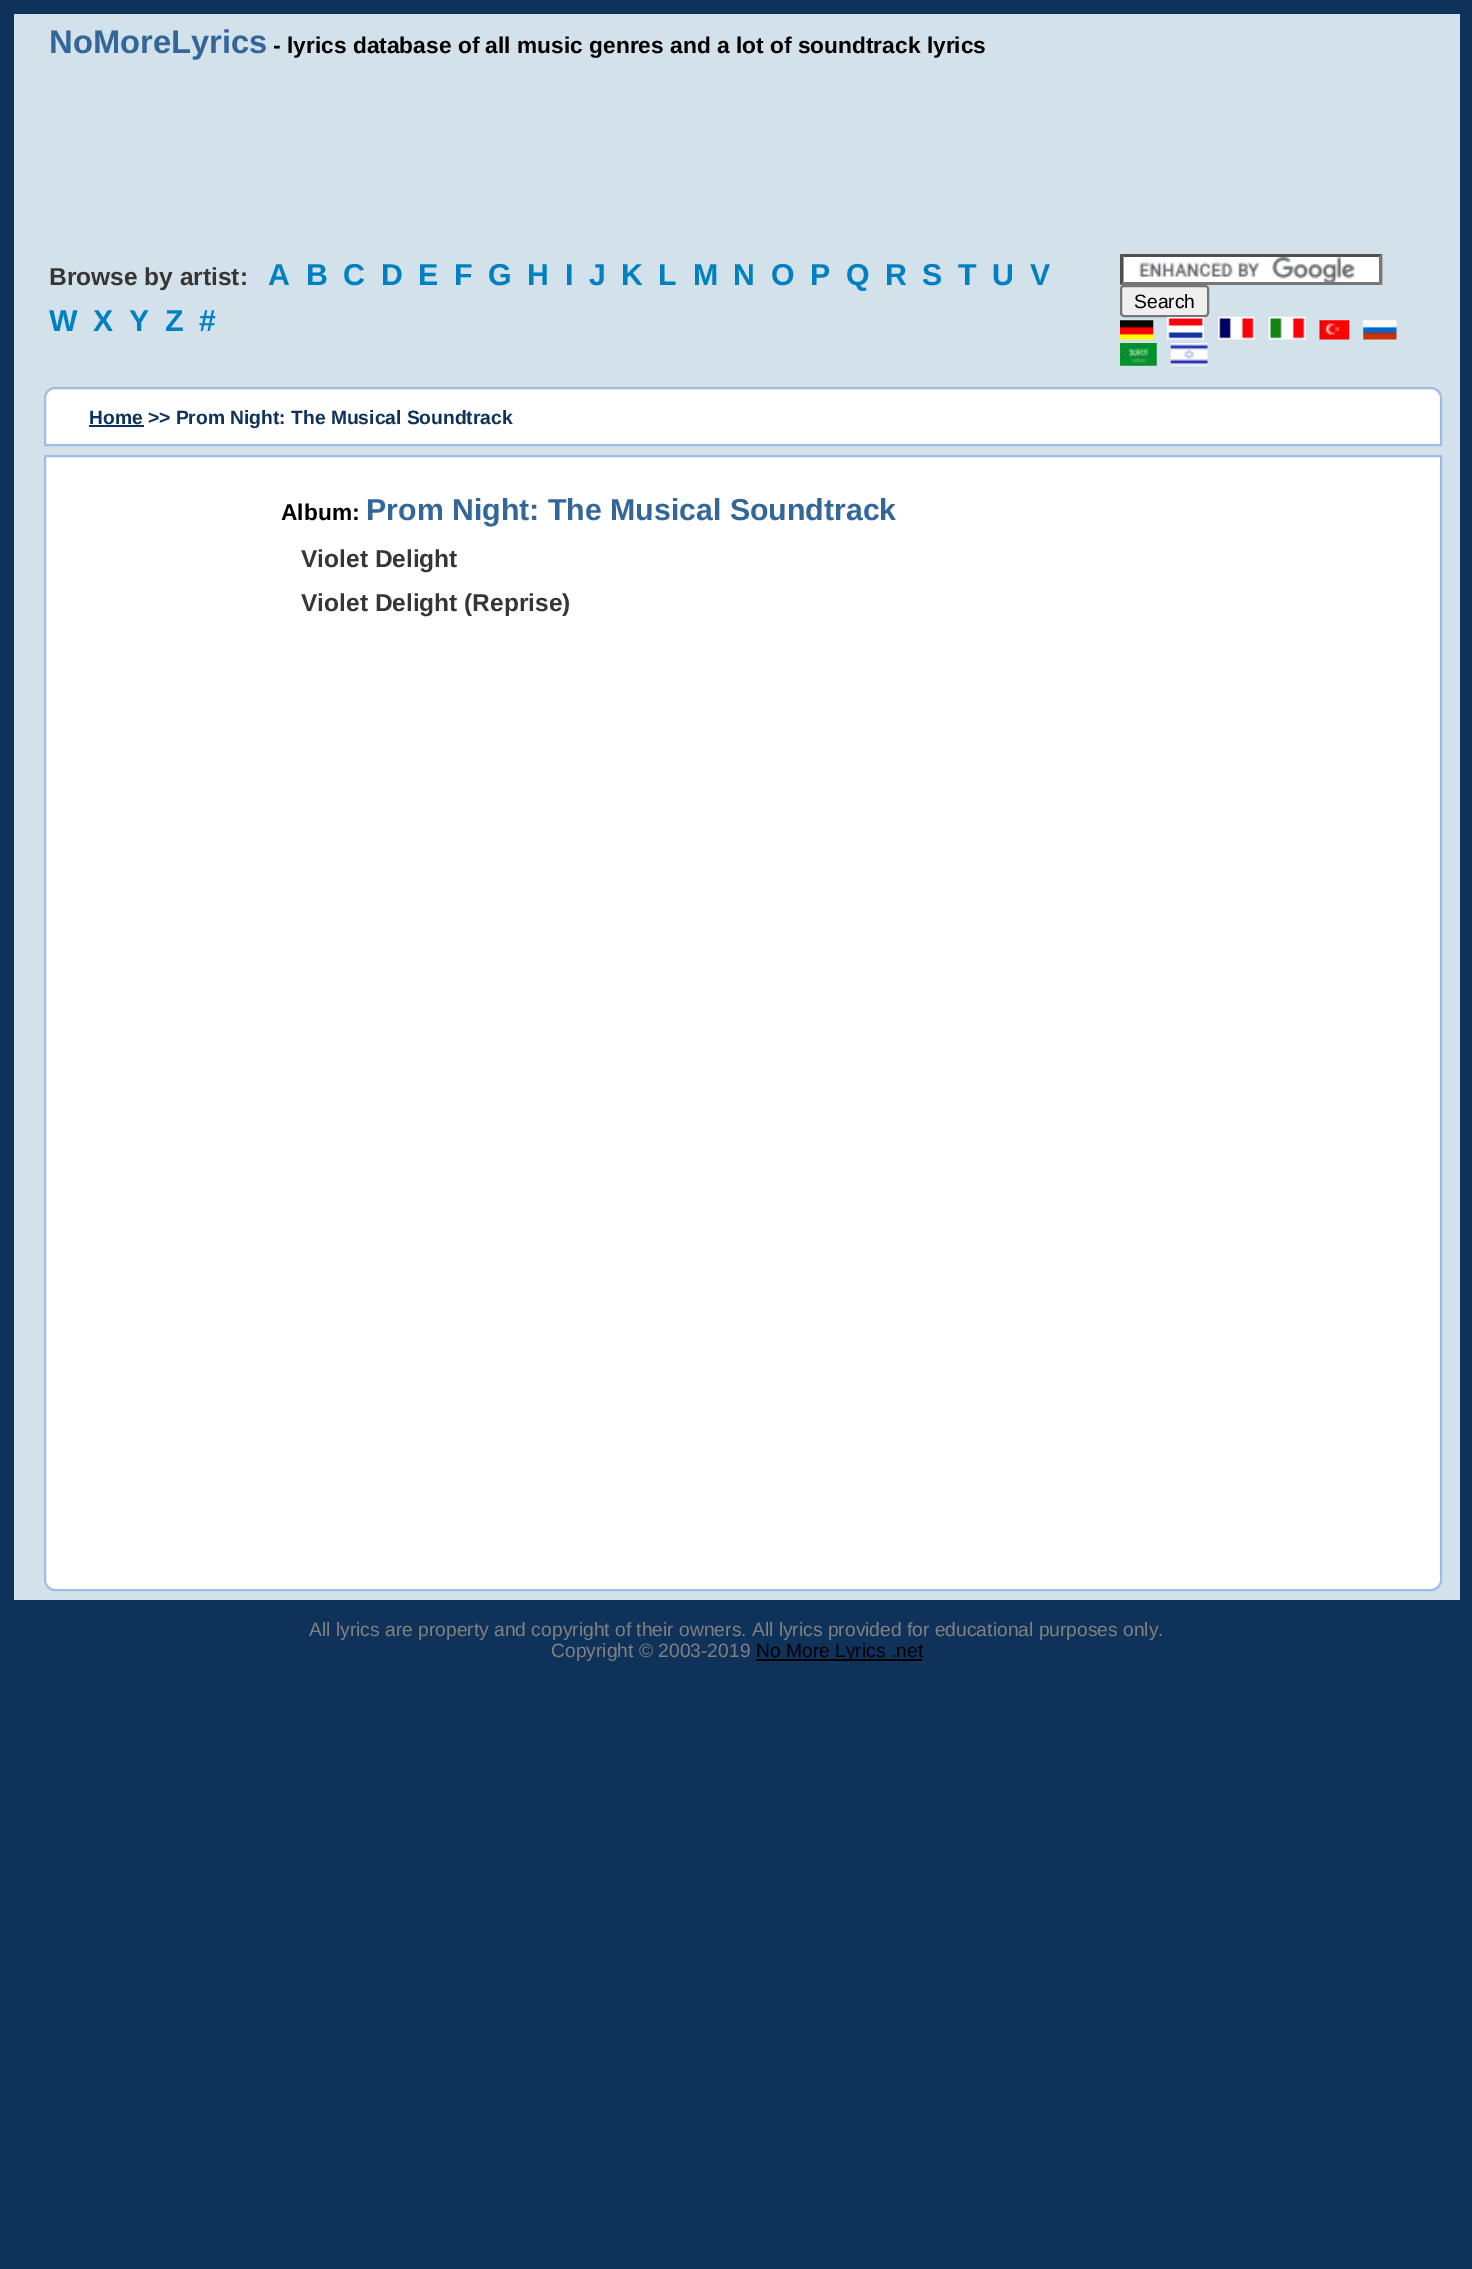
%!PS
<< /PageSize [1472 2269] >> setpagedevice
/mt/moveto load def
/li/lineto load def
/ct/curveto load def
/cp/closepath load def
/fl/fill load def
/st/stroke load def
/gs/gsave load def
/gr/grestore load def
/lw/setlinewidth load def
/co { dup -16 bitshift 255 div exch dup -8 bitshift 255 and 255 div exch 255 and 255 div setrgbcolor } def
/fn { [ exch dup neg 0 0 3 -1 roll 0 0 ] selectfont } def
/tx { co fn moveto show } def
/bx { co rectfill } def
/rr { 5 dict begin { /r /h /w /y /x } { exch def } forall
  x r add y moveto x w add y 2 copy h add r arct x w add y h add x 1 index r arct
  x y h add x y r arct x y 2 copy exch w add exch r arct closepath end } def
/im { 5 dict begin { /h /w /y /x /name } { exch def } forall
  gsave x y translate w h scale
  w h 8 [w 0 0 h 0 0] name (r) file false 3 colorimage grestore end } def
0 2269 translate 1 -1 scale
4 setmiterlimit
0 0 1472 2269 16#0E3259 bx
14 14 1446 1586 16#D3E2EA bx
1120 254 263 31 16#FFFFFF bx
(media/1.raw) 1139 257 216 25 im
16#4F4F4F co
1120 254 mt 1382 254 li 1379 257 li 1124 257 li cp fl
16#767676 co
1382.5 254 mt 1382.5 285 li 1379 282 li 1379 257 li cp fl
1382 285 mt 1120 285 li 1124 282 li 1379 282 li cp fl
16#4F4F4F co
1120 285 mt 1120 254 li 1123.5 257 li 1123.5 282 li cp fl
16#EFEFEF co
1121 286 87 30 3 rr gs fl gr
16#767676 co
2 lw
st
(media/2.raw) 1120 320 34 20 im
(media/3.raw) 1167 317 37 23 im
(media/4.raw) 1218 316 37 24 im
(media/5.raw) 1268 316 38 24 im
(media/6.raw) 1319 320 31 20 im
(media/7.raw) 1363 320 34 20 im
(media/8.raw) 1120 343 37 23 im
(media/9.raw) 1170 343 38 23 im
16#FFFFFF co
55 388 mt 1431 388 li 1436.5 388 1441 392.5 1441 398 ct 1441 445 li 45 445 li 45 398 li 45 392.5 49.5 388 55 388 ct cp gs fl gr
16#9CBEE6 co
st
89 425 55 2 16#0E3259 bx
16#FFFFFF co
45 456 mt 1441 456 li 1441 1580 li 1441 1585.5 1436.5 1590 1431 1590 ct 55 1590 li 49.5 1590 45 1585.5 45 1580 ct cp gs fl gr
16#9CBEE6 co
st
756 1659 166 2 16#000000 bx
(NoMoreLyrics) 49 53 /LiberationSans-Bold 32.75 16#336699 tx
(- lyrics database of all music genres and a lot of soundtrack lyrics) 273 53 /LiberationSans-Bold 22.75 16#000000 tx
(Browse by artist:) 49 285 /LiberationSans-Bold 24.5 16#363636 tx
/LiberationSans-Bold 30.3 fn
16#0080C1 co
268 285 mt 9 0 (A) ashow
306 285 mt 9 0 (B) ashow
343 285 mt 9 0 (C) ashow
381 285 mt 9 0 (D) ashow
418 285 mt 9 0 (E) ashow
454 285 mt 9 0 (F) ashow
488 285 mt 9 0 (G) ashow
527 285 mt 9 0 (H) ashow
565 285 mt 9 0 (I) ashow
589 285 mt 9 0 (J) ashow
621 285 mt 9 0 (K) ashow
658 285 mt 9 0 (L) ashow
693 285 mt 9 0 (M) ashow
733 285 mt 9 0 (N) ashow
771 285 mt 9 0 (O) ashow
810 285 mt 9 0 (P) ashow
846 285 mt 9 0 (Q) ashow
885 285 mt 9 0 (R) ashow
922 285 mt 9 0 (S) ashow
958 285 mt 9 0 (T) ashow
992 285 mt 9 0 (U) ashow
1030 285 mt 9 0 (V) ashow
49 331 mt 9 0 (W) ashow
93 331 mt 9 0 (X) ashow
129 331 mt 9 0 (Y) ashow
165 331 mt 9 0 (Z) ashow
199 331 mt 9 0 (#) ashow
(Search) 1134 308 /LiberationSans-Regular 19.25 16#000000 tx
(Home >> Prom Night: The Musical Soundtrack) 89 424 /LiberationSans-Bold 19.25 16#0E3259 tx
(Album:) 281 520 /LiberationSans-Bold 22.75 16#000000 tx
(Prom Night: The Musical Soundtrack) 366 520 /LiberationSans-Bold 30.3 16#336699 tx
(Violet Delight) 301 567 /LiberationSans-Bold 24.5 16#363636 tx
(Violet Delight \(Reprise\)) 301 611 /LiberationSans-Bold 24.5 16#363636 tx
(All lyrics are property and copyright of their owners. All lyrics provided for educational purposes only.) 309 1636 /LiberationSans-Regular 19.25 16#808080 tx
(Copyright © 2003-2019) 551 1657 /LiberationSans-Regular 19.25 16#808080 tx
(No More Lyrics .net) 756 1657 /LiberationSans-Regular 19.25 16#000000 tx
showpage
